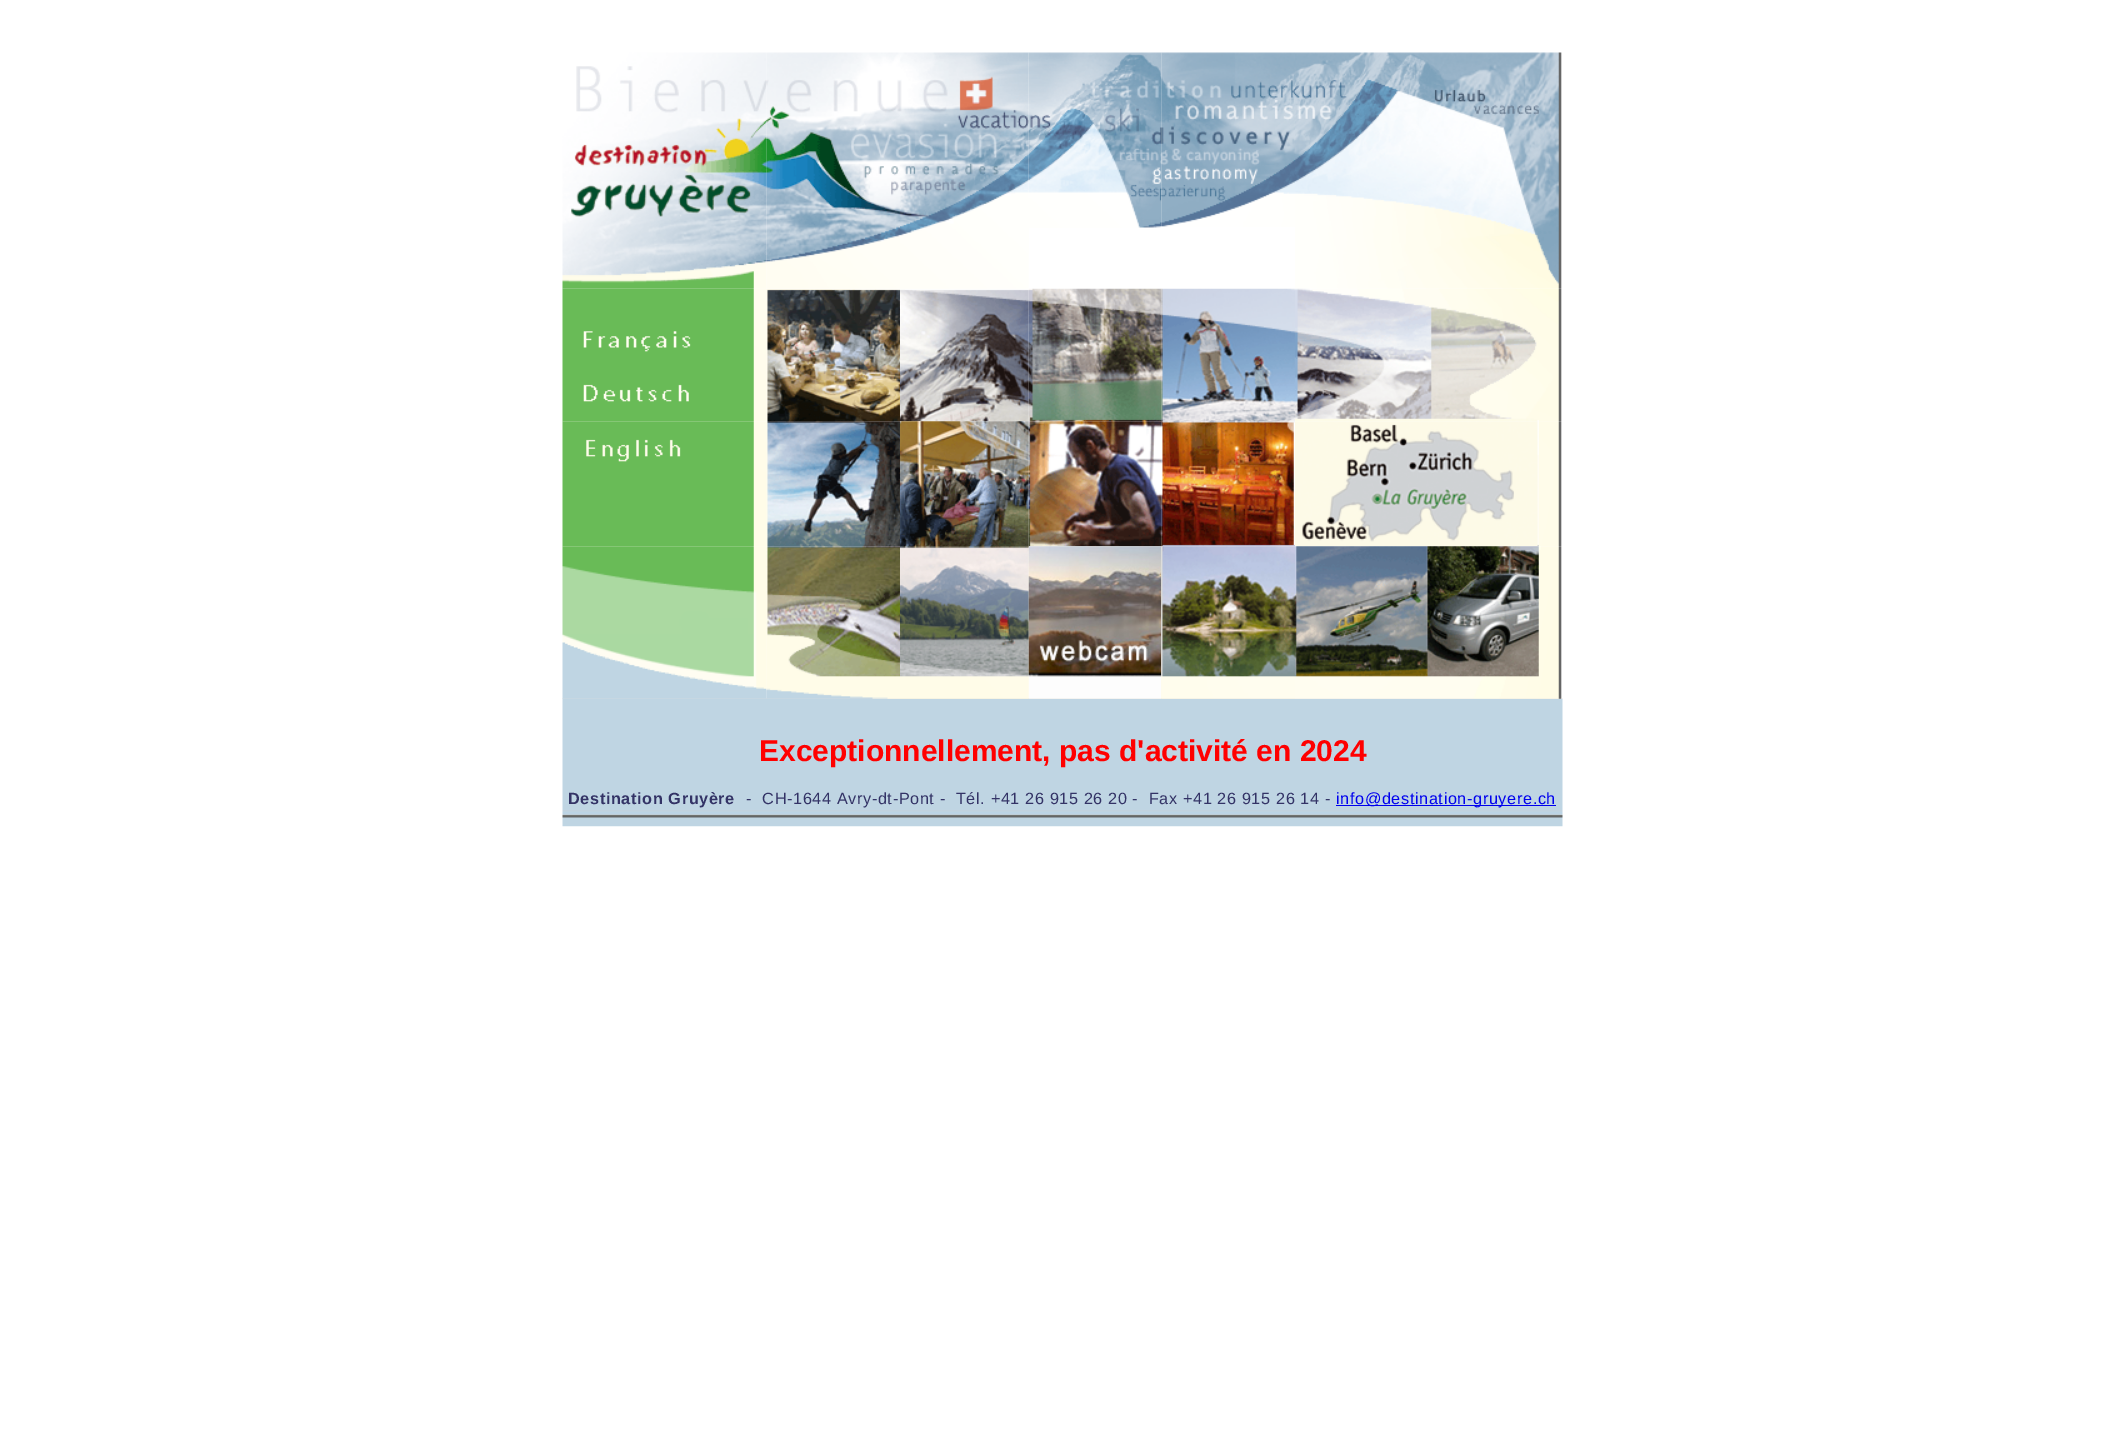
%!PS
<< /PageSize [2124 1454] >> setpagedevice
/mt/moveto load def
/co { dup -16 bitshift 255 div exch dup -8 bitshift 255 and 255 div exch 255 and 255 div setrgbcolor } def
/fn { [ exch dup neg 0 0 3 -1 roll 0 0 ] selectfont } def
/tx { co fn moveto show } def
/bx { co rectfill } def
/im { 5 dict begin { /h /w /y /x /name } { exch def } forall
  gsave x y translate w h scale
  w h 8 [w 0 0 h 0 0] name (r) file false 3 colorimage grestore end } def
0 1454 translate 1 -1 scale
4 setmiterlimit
0 0 2124 1454 16#FFFFFF bx
(media/1.raw) 562 52 205 237 im
(media/2.raw) 766 52 134 237 im
(media/3.raw) 900 52 129 237 im
(media/4.raw) 1028 52 134 176 im
(media/5.raw) 1161 52 134 175 im
(media/6.raw) 1295 52 267 237 im
(media/7.raw) 562 288 205 134 im
(media/8.raw) 766 289 134 133 im
(media/9.raw) 900 289 129 133 im
(media/10.raw) 1028 288 134 134 im
(media/11.raw) 1161 288 134 134 im
(media/12.raw) 1295 288 267 134 im
(media/13.raw) 562 421 205 126 im
(media/14.raw) 766 421 134 126 im
(media/15.raw) 900 421 129 126 im
(media/16.raw) 1028 421 134 126 im
(media/17.raw) 1161 421 134 126 im
(media/18.raw) 1295 421 267 126 im
(media/25.raw) 562 698 1001 129 im
(media/19.raw) 562 546 205 153 im
(media/20.raw) 766 546 134 153 im
(media/21.raw) 900 546 129 153 im
(media/22.raw) 1028 546 134 153 im
(media/23.raw) 1161 546 134 153 im
(media/24.raw) 1295 546 268 153 im
1336 805 220 1 16#0000EE bx
(Exceptionnellement, pas d'activité en 2024) 759 761 /LiberationSans-Bold 30 16#FF0000 tx
/LiberationSans-Bold 16.25 fn
16#333366 co
568 804 mt .62 0 (Destination Gruyère) ashow
/LiberationSans-Regular 16.25 fn
746 804 mt .62 0 (-  CH-1644 Avry-dt-Pont -  Tél. +41 26 915 26 20 -  Fax +41 26 915 26 14 -) ashow
16#0000EE co
1336 804 mt .62 0 (info@destination-gruyere.ch) ashow
showpage
